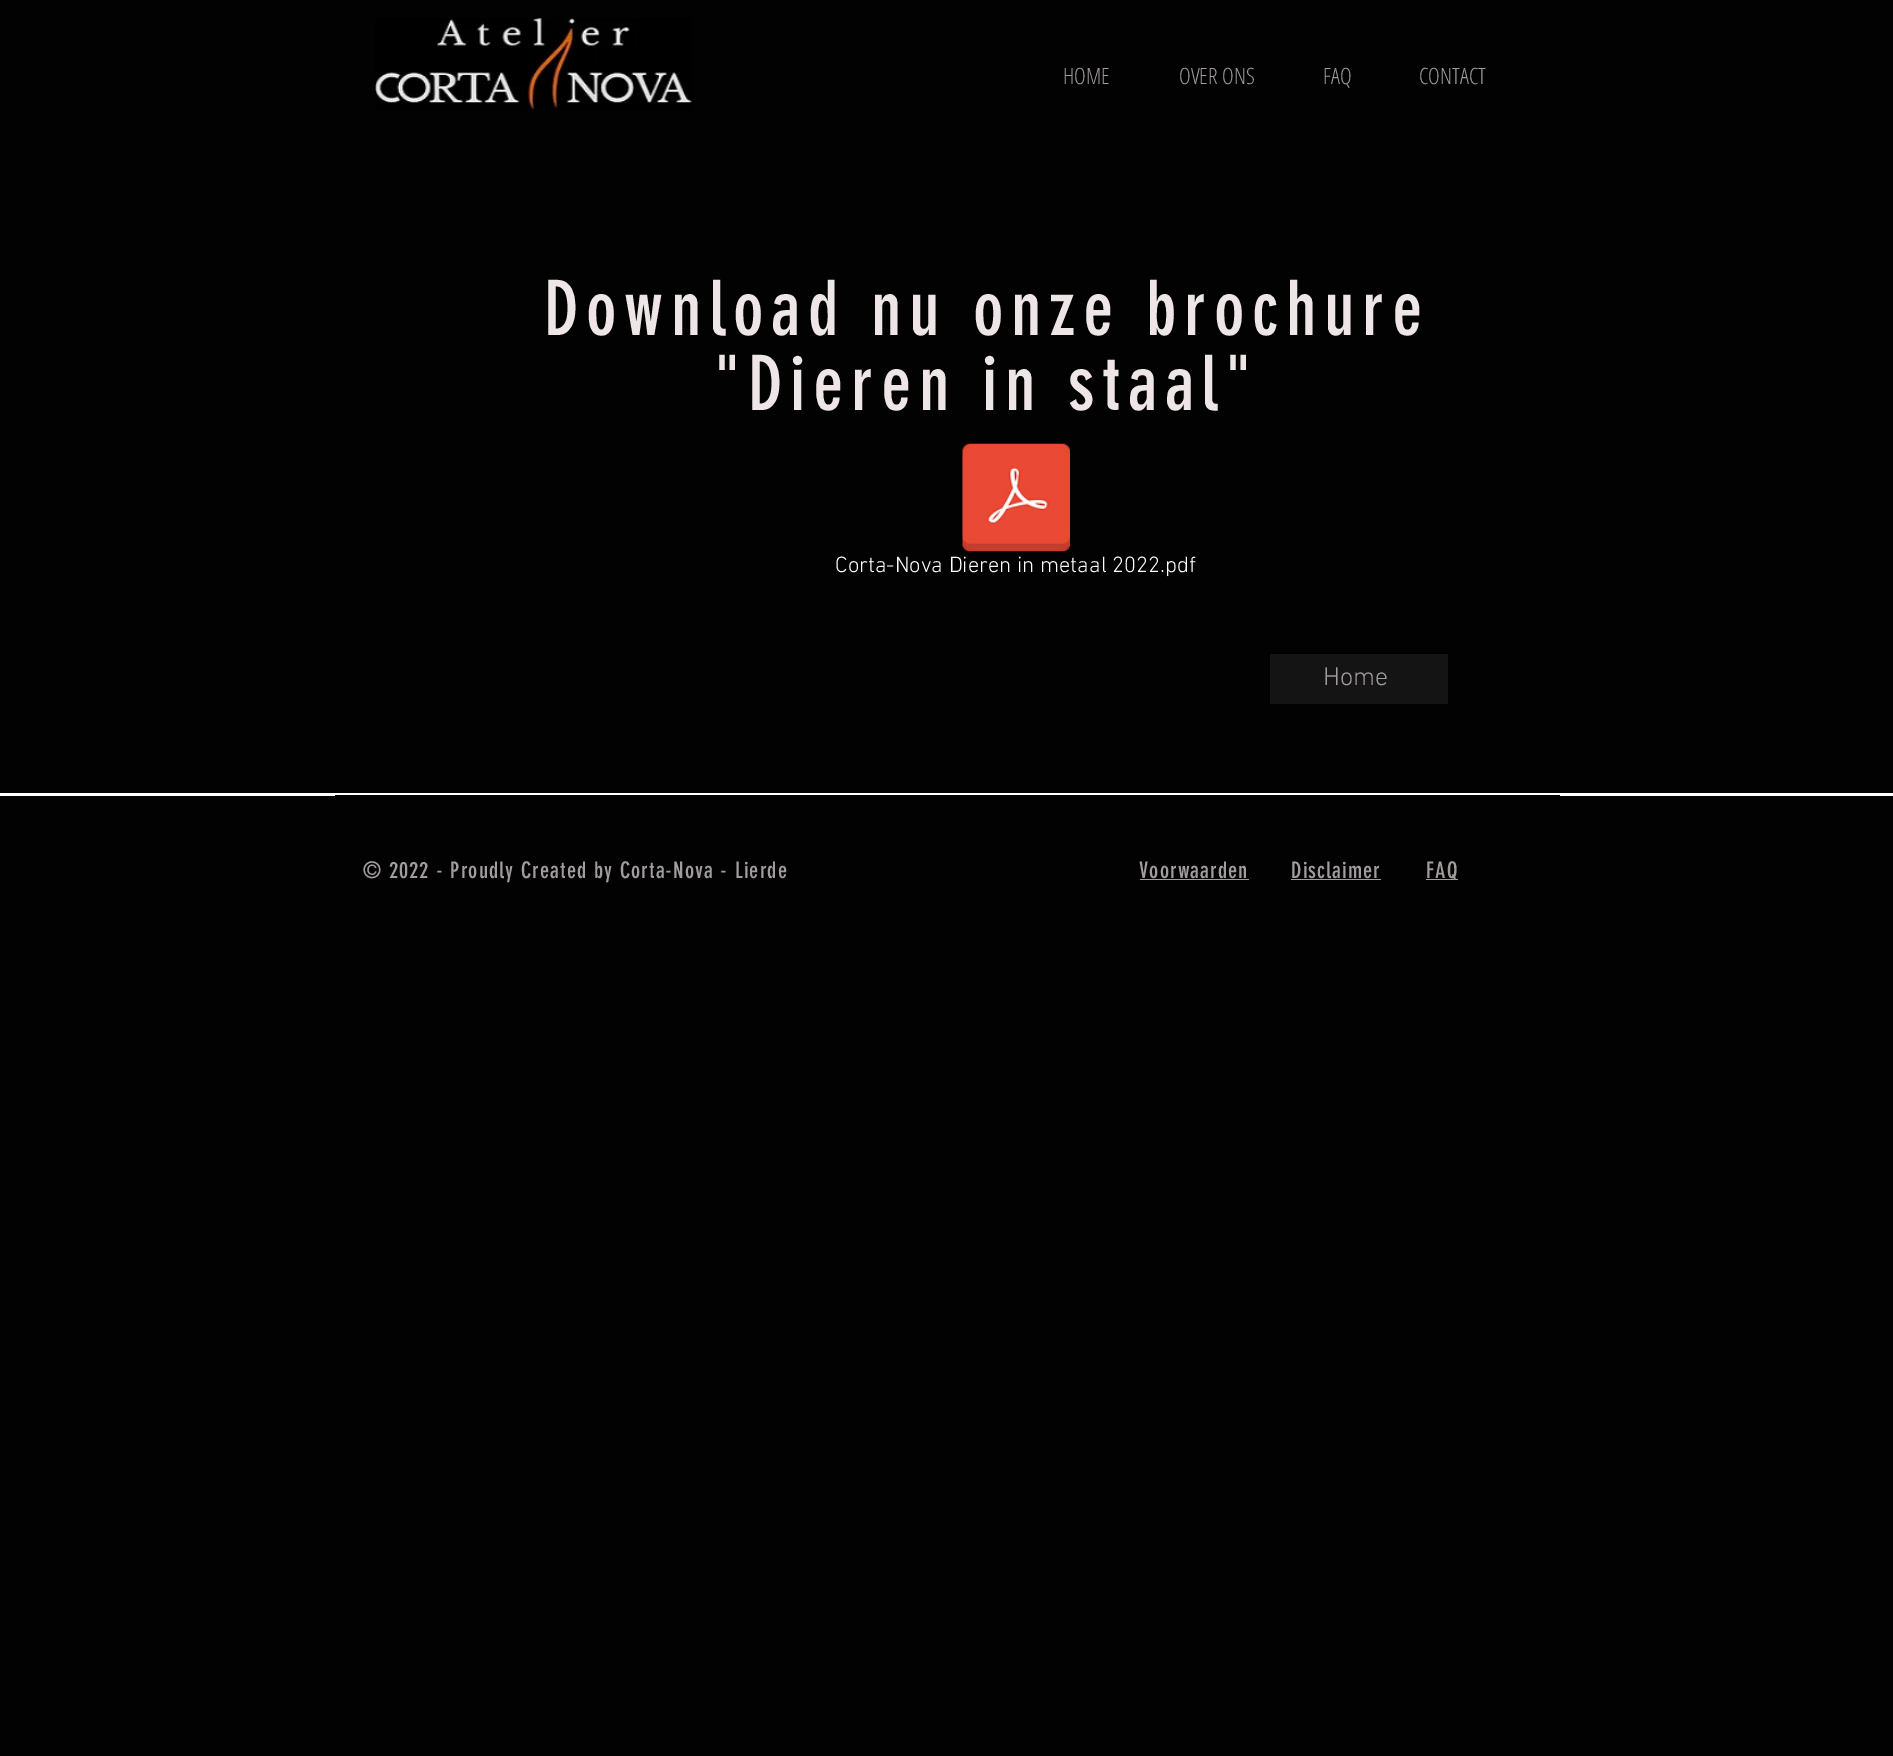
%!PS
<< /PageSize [1893 1756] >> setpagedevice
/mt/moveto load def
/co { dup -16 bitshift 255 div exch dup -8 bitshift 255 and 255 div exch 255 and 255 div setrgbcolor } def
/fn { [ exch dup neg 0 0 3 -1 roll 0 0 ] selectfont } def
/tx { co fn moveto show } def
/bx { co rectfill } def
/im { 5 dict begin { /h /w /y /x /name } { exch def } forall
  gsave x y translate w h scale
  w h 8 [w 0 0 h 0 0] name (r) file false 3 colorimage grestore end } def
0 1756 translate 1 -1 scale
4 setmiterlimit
0 0 1893 1756 16#020202 bx
(media/1.raw) 375 18 317 92 im
(media/2.raw) 962 443 108 109 im
1270 654 178 50 16#141414 bx
0 793 1893 3 16#FFFFFF bx
335 795 1225 1 16#020202 bx
1140 879 109 1 16#A29C9C bx
1291 879 90 1 16#A29C9C bx
1426 879 32 1 16#A29C9C bx
(HOME) 1063 84 /OpenSansCondensed-Light 22.5 16#A29C9C tx
(OVER ONS) 1179 84 /OpenSansCondensed-Light 22.5 16#A29C9C tx
(FAQ) 1323 84 /OpenSansCondensed-Light 22.5 16#A29C9C tx
(CONTACT) 1419 84 /OpenSansCondensed-Light 22.5 16#A29C9C tx
/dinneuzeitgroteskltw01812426-Regular 75 fn
16#EEE6E6 co
544 335 mt 7.5 0 (Download nu onze brochure) ashow
714 410 mt 7.5 0 ("Dieren in staal") ashow
(Corta-Nova Dieren in metaal 2022.pdf) 835 572 /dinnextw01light-Light 22.5 16#FFFFFF tx
(Home) 1323 685 /dinnextw01light-Light 26 16#A29C9C tx
/dinneuzeitgroteskltw01812426-Regular 22.5 fn
363 878 mt 1.1 0 (© 2022 - Proudly Created by Corta-Nova - Lierde) ashow
1139 878 mt 1.1 0 (Voorwaarden) ashow
1291 878 mt 1.1 0 (Disclaimer) ashow
1426 878 mt 1.1 0 (FAQ) ashow
showpage
